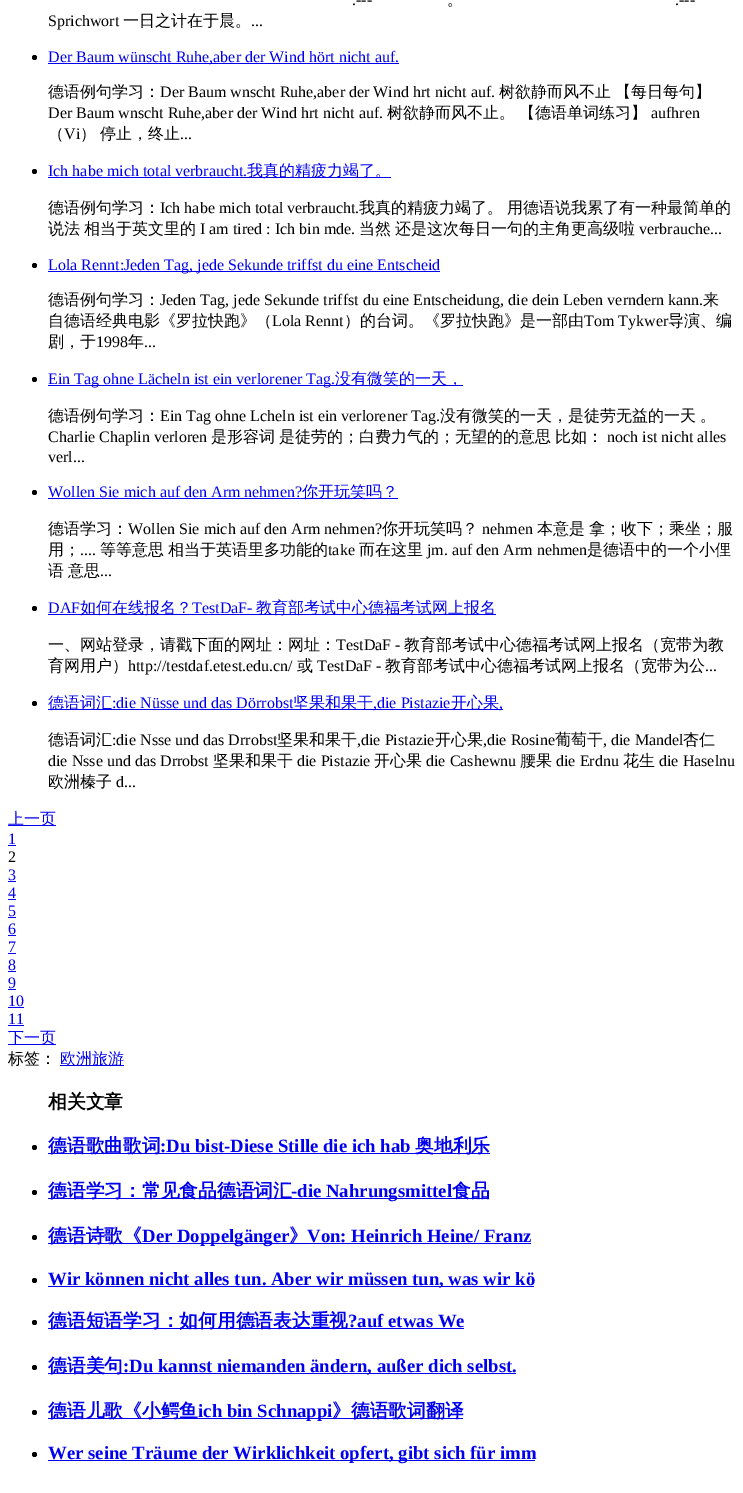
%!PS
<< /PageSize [743 1493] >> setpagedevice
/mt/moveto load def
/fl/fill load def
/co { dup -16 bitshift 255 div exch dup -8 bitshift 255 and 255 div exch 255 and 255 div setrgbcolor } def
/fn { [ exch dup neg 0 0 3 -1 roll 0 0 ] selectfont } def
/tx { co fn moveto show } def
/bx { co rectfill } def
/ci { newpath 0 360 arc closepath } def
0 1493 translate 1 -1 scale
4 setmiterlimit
0 0 743 1493 16#FFFFFF bx
16#000000 co
34.5 57.5 2.5 ci fl
48 63 351 1 16#0000EE bx
16#000000 co
34.5 171.5 2.5 ci fl
48 177 343 1 16#0000EE bx
16#000000 co
34.5 265.5 2.5 ci fl
48 271 392 1 16#0000EE bx
16#000000 co
34.5 379.5 2.5 ci fl
48 385 415 1 16#0000EE bx
16#000000 co
34.5 492.5 2.5 ci fl
48 498 350 1 16#0000EE bx
16#000000 co
34.5 608.5 2.5 ci fl
48 614 448 1 16#0000EE bx
16#000000 co
34.5 703.5 2.5 ci fl
48 709 455 1 16#0000EE bx
8 825 48 1 16#0000EE bx
8 845 8 1 16#0000EE bx
8 881 8 1 16#0000EE bx
8 899 8 1 16#0000EE bx
8 917 8 1 16#0000EE bx
8 935 8 1 16#0000EE bx
8 953 8 1 16#0000EE bx
8 971 8 1 16#0000EE bx
8 989 8 1 16#0000EE bx
8 1007 16 1 16#0000EE bx
8 1025 16 1 16#0000EE bx
8 1044 48 1 16#0000EE bx
60 1065 64 1 16#0000EE bx
16#000000 co
34.5 1147.5 2.5 ci fl
48 1153 442 1 16#0000EE bx
16#000000 co
34.5 1192.5 2.5 ci fl
48 1198 441 1 16#0000EE bx
16#000000 co
34.5 1237.5 2.5 ci fl
48 1243 483 1 16#0000EE bx
16#000000 co
34.5 1280.5 2.5 ci fl
48 1286 486 1 16#0000EE bx
16#000000 co
34.5 1322.5 2.5 ci fl
48 1328 416 1 16#0000EE bx
16#000000 co
34.5 1367.5 2.5 ci fl
48 1373 468 1 16#0000EE bx
16#000000 co
34.5 1412.5 2.5 ci fl
48 1418 415 1 16#0000EE bx
16#000000 co
34.5 1454.5 2.5 ci fl
48 1460 487 1 16#0000EE bx
(.---) 352 5 /LiberationSerif-Regular 16 16#000000 tx
(。) 447 5 /WenQuanYiZenHei-Medium 16 16#000000 tx
(.---) 675 5 /LiberationSerif-Regular 16 16#000000 tx
(Sprichwort) 48 26 /LiberationSerif-Regular 16 16#000000 tx
(一日之计在于晨。) 123 26 /WenQuanYiZenHei-Medium 16 16#000000 tx
(...) 251 26 /LiberationSerif-Regular 16 16#000000 tx
(Der Baum wünscht Ruhe,aber der Wind hört nicht auf.) 48 62 /LiberationSerif-Regular 16 16#0000EE tx
(德语例句学习：) 48 97 /WenQuanYiZenHei-Medium 16 16#000000 tx
(Der Baum wnscht Ruhe,aber der Wind hrt nicht auf.) 160 97 /LiberationSerif-Regular 16 16#000000 tx
(树欲静而风不止) 499 97 /WenQuanYiZenHei-Medium 16 16#000000 tx
(【每日每句】) 615 97 /WenQuanYiZenHei-Medium 16 16#000000 tx
(Der Baum wnscht Ruhe,aber der Wind hrt nicht auf.) 48 118 /LiberationSerif-Regular 16 16#000000 tx
(树欲静而风不止。) 387 118 /WenQuanYiZenHei-Medium 16 16#000000 tx
(【德语单词练习】) 519 118 /WenQuanYiZenHei-Medium 16 16#000000 tx
(aufhren) 651 118 /LiberationSerif-Regular 16 16#000000 tx
(（) 48 139 /WenQuanYiZenHei-Medium 16 16#000000 tx
(Vi) 64 139 /LiberationSerif-Regular 16 16#000000 tx
/WenQuanYiZenHei-Medium 16 fn
80 139 mt -1 0 32 (） 停止，终止) widthshow
(...) 180 139 /LiberationSerif-Regular 16 16#000000 tx
(Ich habe mich total verbraucht.) 48 176 /LiberationSerif-Regular 16 16#0000EE tx
(我真的精疲力竭了。) 247 176 /WenQuanYiZenHei-Medium 16 16#0000EE tx
(德语例句学习：) 48 213 /WenQuanYiZenHei-Medium 16 16#000000 tx
(Ich habe mich total verbraucht.) 160 213 /LiberationSerif-Regular 16 16#000000 tx
(我真的精疲力竭了。) 359 213 /WenQuanYiZenHei-Medium 16 16#000000 tx
(用德语说我累了有一种最简单的) 507 213 /WenQuanYiZenHei-Medium 16 16#000000 tx
(说法) 48 234 /WenQuanYiZenHei-Medium 16 16#000000 tx
(相当于英文里的) 84 234 /WenQuanYiZenHei-Medium 16 16#000000 tx
(I am tired : Ich bin mde.) 200 234 /LiberationSerif-Regular 16 16#000000 tx
(当然) 359 234 /WenQuanYiZenHei-Medium 16 16#000000 tx
(还是这次每日一句的主角更高级啦) 395 234 /WenQuanYiZenHei-Medium 16 16#000000 tx
(verbrauche...) 639 234 /LiberationSerif-Regular 16 16#000000 tx
(Lola Rennt:Jeden Tag, jede Sekunde triffst du eine Entscheid) 48 270 /LiberationSerif-Regular 16 16#0000EE tx
(德语例句学习：) 48 305 /WenQuanYiZenHei-Medium 16 16#000000 tx
(Jeden Tag, jede Sekunde triffst du eine Entscheidung, die dein Leben verndern kann.) 160 305 /LiberationSerif-Regular 16 16#000000 tx
(来) 703 305 /WenQuanYiZenHei-Medium 16 16#000000 tx
(自德语经典电影《罗拉快跑》（) 48 326 /WenQuanYiZenHei-Medium 16 16#000000 tx
(Lola Rennt) 272 326 /LiberationSerif-Regular 16 16#000000 tx
(）的台词。《罗拉快跑》是一部由) 344 326 /WenQuanYiZenHei-Medium 16 16#000000 tx
(Tom Tykwer) 584 326 /LiberationSerif-Regular 16 16#000000 tx
(导演、编) 668 326 /WenQuanYiZenHei-Medium 16 16#000000 tx
(剧，于) 48 347 /WenQuanYiZenHei-Medium 16 16#000000 tx
(1998) 96 347 /LiberationSerif-Regular 16 16#000000 tx
(年) 128 347 /WenQuanYiZenHei-Medium 16 16#000000 tx
(...) 144 347 /LiberationSerif-Regular 16 16#000000 tx
(Ein Tag ohne Lächeln ist ein verlorener Tag.) 48 384 /LiberationSerif-Regular 16 16#0000EE tx
(没有微笑的一天，) 335 384 /WenQuanYiZenHei-Medium 16 16#0000EE tx
(德语例句学习：) 48 421 /WenQuanYiZenHei-Medium 16 16#000000 tx
(Ein Tag ohne Lcheln ist ein verlorener Tag.) 160 421 /LiberationSerif-Regular 16 16#000000 tx
(没有微笑的一天，是徒劳无益的一天) 440 421 /WenQuanYiZenHei-Medium 16 16#000000 tx
(。) 700 421 /WenQuanYiZenHei-Medium 16 16#000000 tx
(Charlie Chaplin verloren) 48 442 /LiberationSerif-Regular 16 16#000000 tx
(是形容词) 211 442 /WenQuanYiZenHei-Medium 16 16#000000 tx
(是徒劳的；白费力气的；无望的的意思) 279 442 /WenQuanYiZenHei-Medium 16 16#000000 tx
(比如：) 555 442 /WenQuanYiZenHei-Medium 16 16#000000 tx
(noch ist nicht alles) 607 442 /LiberationSerif-Regular 16 16#000000 tx
(verl...) 48 462 /LiberationSerif-Regular 16 16#000000 tx
(Wollen Sie mich auf den Arm nehmen?) 48 497 /LiberationSerif-Regular 16 16#0000EE tx
(你开玩笑吗？) 302 497 /WenQuanYiZenHei-Medium 16 16#0000EE tx
(德语学习：) 48 534 /WenQuanYiZenHei-Medium 16 16#000000 tx
(Wollen Sie mich auf den Arm nehmen?) 128 534 /LiberationSerif-Regular 16 16#000000 tx
(你开玩笑吗？) 382 534 /WenQuanYiZenHei-Medium 16 16#000000 tx
(nehmen) 482 534 /LiberationSerif-Regular 16 16#000000 tx
(本意是) 537 534 /WenQuanYiZenHei-Medium 16 16#000000 tx
(拿；收下；乘坐；服) 589 534 /WenQuanYiZenHei-Medium 16 16#000000 tx
(用；) 48 555 /WenQuanYiZenHei-Medium 16 16#000000 tx
(....) 80 555 /LiberationSerif-Regular 16 16#000000 tx
(等等意思) 100 555 /WenQuanYiZenHei-Medium 16 16#000000 tx
(相当于英语里多功能的) 168 555 /WenQuanYiZenHei-Medium 16 16#000000 tx
(take) 328 555 /LiberationSerif-Regular 16 16#000000 tx
(而在这里) 359 555 /WenQuanYiZenHei-Medium 16 16#000000 tx
(jm. auf den Arm nehmen) 427 555 /LiberationSerif-Regular 16 16#000000 tx
(是德语中的一个小俚) 587 555 /WenQuanYiZenHei-Medium 16 16#000000 tx
48 576 mt -1 0 32 (语 意思) widthshow
(...) 100 576 /LiberationSerif-Regular 16 16#000000 tx
(DAF) 48 613 /LiberationSerif-Regular 16 16#0000EE tx
(如何在线报名？) 80 613 /WenQuanYiZenHei-Medium 16 16#0000EE tx
(TestDaF-) 192 613 /LiberationSerif-Regular 16 16#0000EE tx
(教育部考试中心德福考试网上报名) 256 613 /WenQuanYiZenHei-Medium 16 16#0000EE tx
(一、网站登录，请戳下面的网址：网址：) 48 650 /WenQuanYiZenHei-Medium 16 16#000000 tx
(TestDaF -) 336 650 /LiberationSerif-Regular 16 16#000000 tx
(教育部考试中心德福考试网上报名（宽带为教) 404 650 /WenQuanYiZenHei-Medium 16 16#000000 tx
(育网用户）) 48 671 /WenQuanYiZenHei-Medium 16 16#000000 tx
(http://testdaf.etest.edu.cn/) 128 671 /LiberationSerif-Regular 16 16#000000 tx
(或) 297 671 /WenQuanYiZenHei-Medium 16 16#000000 tx
(TestDaF -) 317 671 /LiberationSerif-Regular 16 16#000000 tx
(教育部考试中心德福考试网上报名（宽带为公) 385 671 /WenQuanYiZenHei-Medium 16 16#000000 tx
(...) 705 671 /LiberationSerif-Regular 16 16#000000 tx
(德语词汇) 48 708 /WenQuanYiZenHei-Medium 16 16#0000EE tx
(:die Nüsse und das Dörrobst) 112 708 /LiberationSerif-Regular 16 16#0000EE tx
(坚果和果干) 293 708 /WenQuanYiZenHei-Medium 16 16#0000EE tx
(,die Pistazie) 373 708 /LiberationSerif-Regular 16 16#0000EE tx
(开心果) 451 708 /WenQuanYiZenHei-Medium 16 16#0000EE tx
(,) 499 708 /LiberationSerif-Regular 16 16#0000EE tx
(德语词汇) 48 745 /WenQuanYiZenHei-Medium 16 16#000000 tx
(:die Nsse und das Drrobst) 112 745 /LiberationSerif-Regular 16 16#000000 tx
(坚果和果干) 277 745 /WenQuanYiZenHei-Medium 16 16#000000 tx
(,die Pistazie) 357 745 /LiberationSerif-Regular 16 16#000000 tx
(开心果) 435 745 /WenQuanYiZenHei-Medium 16 16#000000 tx
(,die Rosine) 483 745 /LiberationSerif-Regular 16 16#000000 tx
(葡萄干) 555 745 /WenQuanYiZenHei-Medium 16 16#000000 tx
(, die Mandel) 603 745 /LiberationSerif-Regular 16 16#000000 tx
(杏仁) 683 745 /WenQuanYiZenHei-Medium 16 16#000000 tx
(die Nsse und das Drrobst) 48 766 /LiberationSerif-Regular 16 16#000000 tx
(坚果和果干) 213 766 /WenQuanYiZenHei-Medium 16 16#000000 tx
(die Pistazie) 297 766 /LiberationSerif-Regular 16 16#000000 tx
(开心果) 374 766 /WenQuanYiZenHei-Medium 16 16#000000 tx
(die Cashewnu) 426 766 /LiberationSerif-Regular 16 16#000000 tx
(腰果) 520 766 /WenQuanYiZenHei-Medium 16 16#000000 tx
(die Erdnu) 556 766 /LiberationSerif-Regular 16 16#000000 tx
(花生) 623 766 /WenQuanYiZenHei-Medium 16 16#000000 tx
(die Haselnu) 659 766 /LiberationSerif-Regular 16 16#000000 tx
(欧洲榛子) 48 787 /WenQuanYiZenHei-Medium 16 16#000000 tx
(d...) 116 787 /LiberationSerif-Regular 16 16#000000 tx
(上一页) 8 824 /WenQuanYiZenHei-Medium 16 16#0000EE tx
(1) 8 844 /LiberationSerif-Regular 16 16#0000EE tx
(2) 8 862 /LiberationSerif-Regular 16 16#000000 tx
(3) 8 880 /LiberationSerif-Regular 16 16#0000EE tx
(4) 8 898 /LiberationSerif-Regular 16 16#0000EE tx
(5) 8 916 /LiberationSerif-Regular 16 16#0000EE tx
(6) 8 934 /LiberationSerif-Regular 16 16#0000EE tx
(7) 8 952 /LiberationSerif-Regular 16 16#0000EE tx
(8) 8 970 /LiberationSerif-Regular 16 16#0000EE tx
(9) 8 988 /LiberationSerif-Regular 16 16#0000EE tx
(10) 8 1006 /LiberationSerif-Regular 16 16#0000EE tx
(11) 8 1024 /LiberationSerif-Regular 16 16#0000EE tx
(下一页) 8 1043 /WenQuanYiZenHei-Medium 16 16#0000EE tx
(标签：) 8 1064 /WenQuanYiZenHei-Medium 16 16#000000 tx
(欧洲旅游) 60 1064 /WenQuanYiZenHei-Medium 16 16#0000EE tx
(相关文章) 48 1108 /WenQuanYiZenHei-Bold 18.75 16#000000 tx
(德语歌曲歌词) 48 1152 /WenQuanYiZenHei-Bold 18.75 16#0000EE tx
(:Du bist-Diese Stille die ich hab) 160 1152 /LiberationSerif-Bold 18.75 16#0000EE tx
(奥地利乐) 415 1152 /WenQuanYiZenHei-Bold 18.75 16#0000EE tx
(德语学习：常见食品德语词汇) 48 1197 /WenQuanYiZenHei-Bold 18.75 16#0000EE tx
(-die Nahrungsmittel) 291 1197 /LiberationSerif-Bold 18.75 16#0000EE tx
(食品) 452 1197 /WenQuanYiZenHei-Bold 18.75 16#0000EE tx
(德语诗歌《) 48 1242 /WenQuanYiZenHei-Bold 18.75 16#0000EE tx
(Der Doppelgänger) 142 1242 /LiberationSerif-Bold 18.75 16#0000EE tx
(》) 289 1242 /WenQuanYiZenHei-Bold 18.75 16#0000EE tx
(Von: Heinrich Heine/ Franz) 307 1242 /LiberationSerif-Bold 18.75 16#0000EE tx
(Wir können nicht alles tun. Aber wir müssen tun, was wir kö) 48 1285 /LiberationSerif-Bold 18.75 16#0000EE tx
(德语短语学习：如何用德语表达重视) 48 1327 /WenQuanYiZenHei-Bold 18.75 16#0000EE tx
(?auf etwas We) 348 1327 /LiberationSerif-Bold 18.75 16#0000EE tx
(德语美句) 48 1372 /WenQuanYiZenHei-Bold 18.75 16#0000EE tx
(:Du kannst niemanden ändern, außer dich selbst.) 123 1372 /LiberationSerif-Bold 18.75 16#0000EE tx
(德语儿歌《小鳄鱼) 48 1417 /WenQuanYiZenHei-Bold 18.75 16#0000EE tx
(ich bin Schnappi) 198 1417 /LiberationSerif-Bold 18.75 16#0000EE tx
(》德语歌词翻译) 332 1417 /WenQuanYiZenHei-Bold 18.75 16#0000EE tx
(Wer seine Träume der Wirklichkeit opfert, gibt sich für imm) 48 1459 /LiberationSerif-Bold 18.75 16#0000EE tx
showpage
